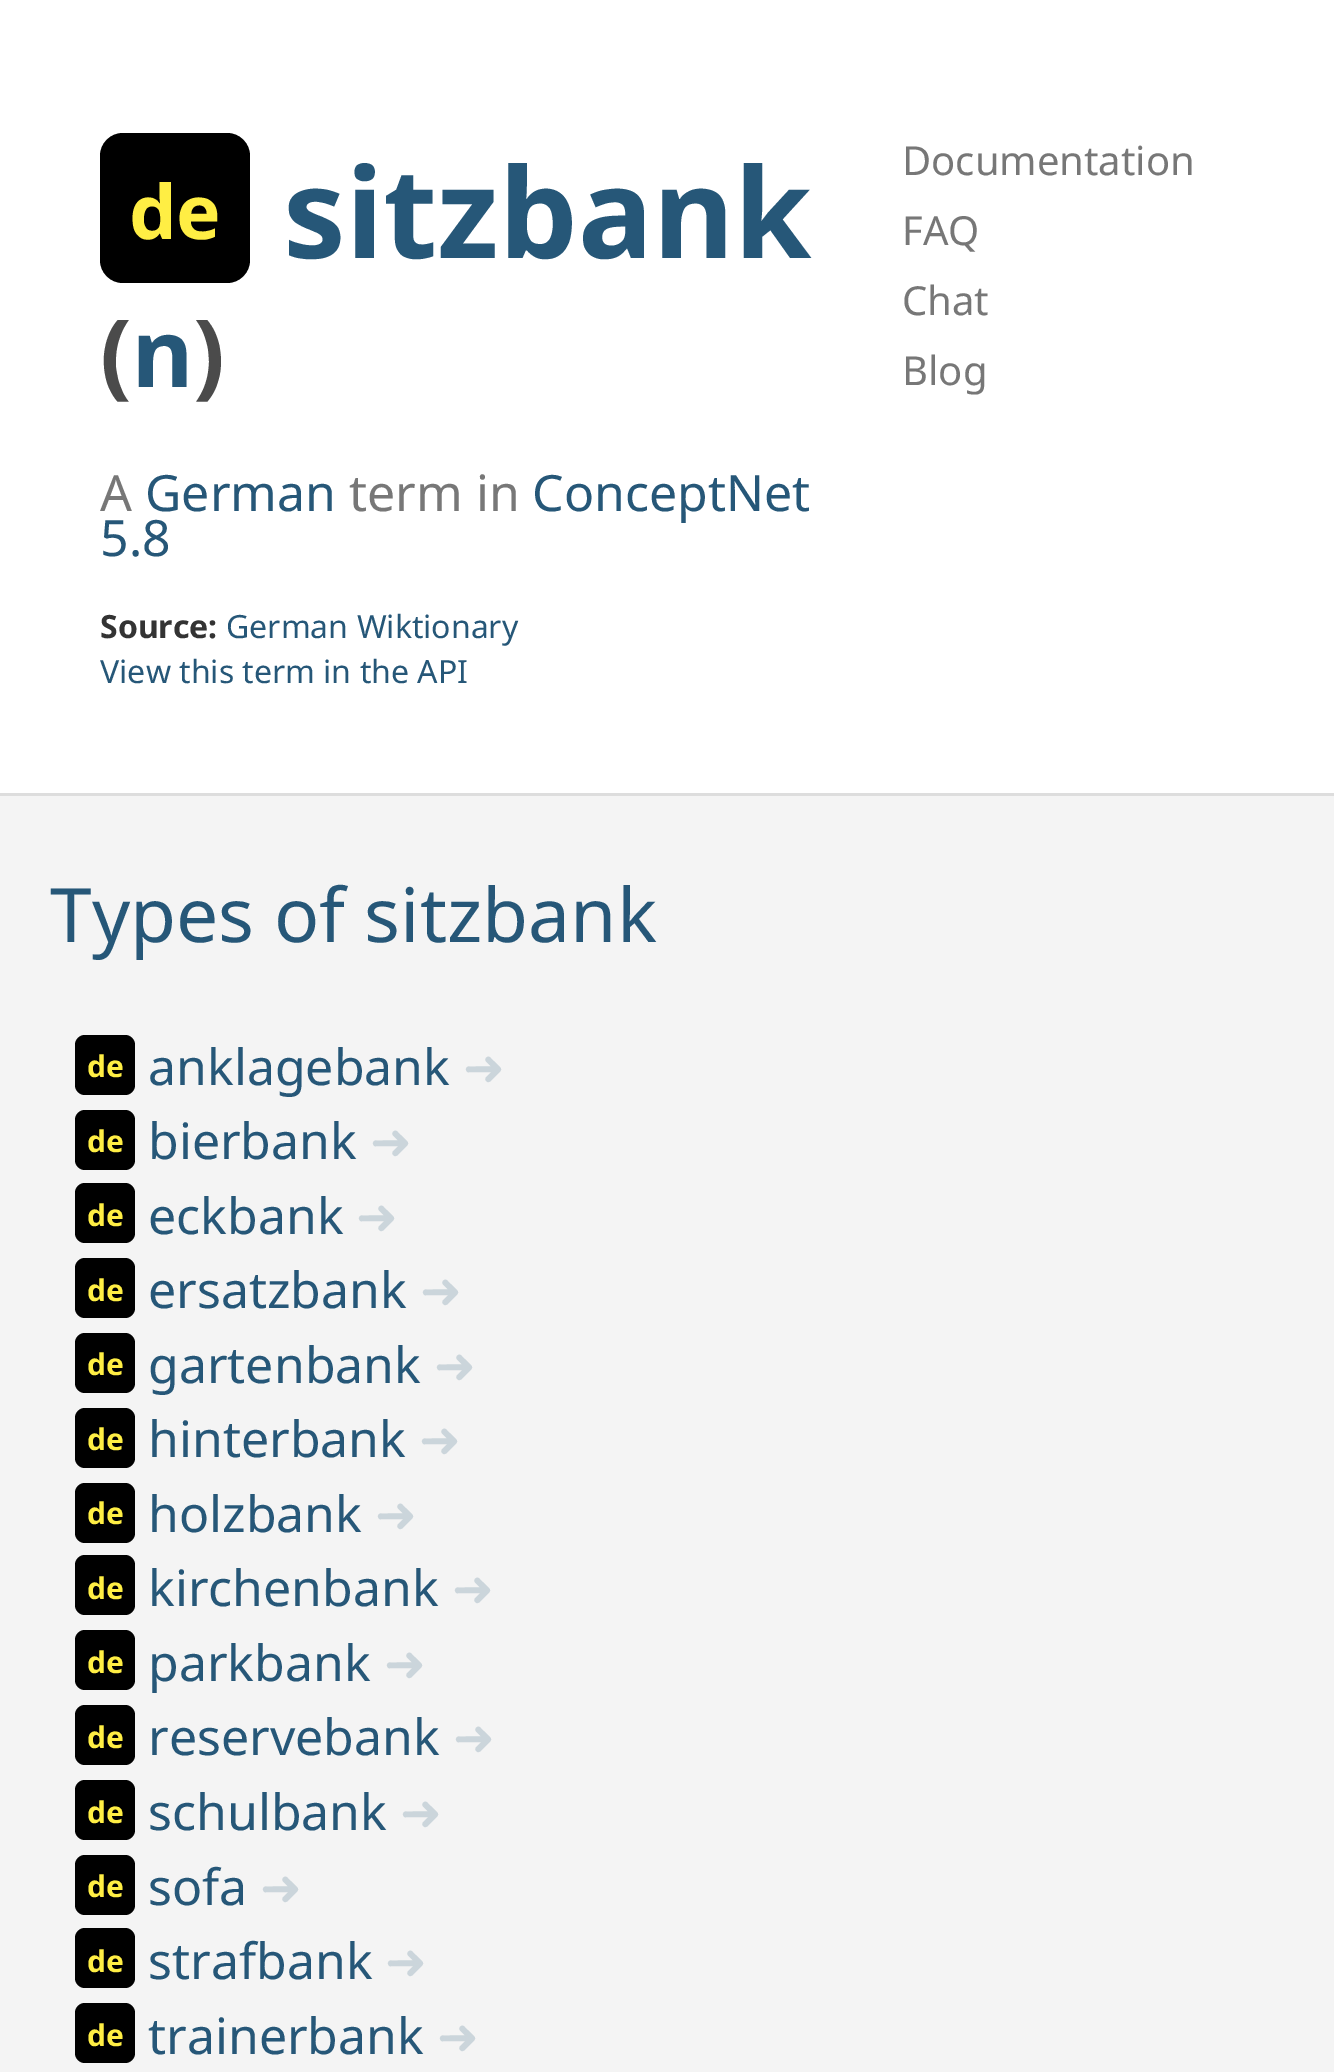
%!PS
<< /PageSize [1334 2072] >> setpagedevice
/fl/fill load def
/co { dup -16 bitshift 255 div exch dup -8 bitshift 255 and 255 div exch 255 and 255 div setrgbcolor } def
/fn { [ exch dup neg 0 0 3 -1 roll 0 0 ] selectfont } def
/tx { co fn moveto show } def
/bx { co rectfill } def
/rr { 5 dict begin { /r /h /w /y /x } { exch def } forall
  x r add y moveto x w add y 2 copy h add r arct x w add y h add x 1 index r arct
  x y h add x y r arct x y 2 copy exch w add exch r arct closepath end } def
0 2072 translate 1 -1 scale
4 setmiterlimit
0 0 1334 2072 16#FFFFFF bx
16#000000 co
100 133 150 150 23 rr fl
0 796 1334 1276 16#F4F4F4 bx
0 793 1334 3 16#DDDDDD bx
16#000000 co
75 1035 60 60 10 rr fl
75 1110 60 60 10 rr fl
75 1183 60 60 10 rr fl
75 1258 60 60 10 rr fl
75 1333 60 60 10 rr fl
75 1408 60 60 10 rr fl
75 1483 60 60 10 rr fl
75 1555 60 60 10 rr fl
75 1630 60 60 10 rr fl
75 1705 60 60 10 rr fl
75 1780 60 60 10 rr fl
75 1855 60 60 10 rr fl
75 1928 60 60 10 rr fl
75 2003 60 60 10 rr fl
(de) 129 239 /NotoSans-Bold 75 16#FFEE44 tx
(sitzbank) 283 258 /NotoSans-Bold 125 16#265778 tx
(\() 100 387 /NotoSans-Bold 94 16#4B4B4B tx
(n) 132 387 /NotoSans-Bold 94 16#265778 tx
(\)) 193 387 /NotoSans-Bold 94 16#4B4B4B tx
(A) 100 511 /NotoSans-Regular 50 16#777777 tx
(German) 145 511 /NotoSans-Regular 50 16#265778 tx
(term in) 349 511 /NotoSans-Regular 50 16#777777 tx
(ConceptNet) 532 511 /NotoSans-Regular 50 16#265778 tx
(5.8) 100 556 /NotoSans-Regular 50 16#265778 tx
(Source:) 100 638 /NotoSans-Bold 32 16#333333 tx
(German Wiktionary) 226 638 /NotoSans-Regular 32 16#265778 tx
(View this term in the API) 100 683 /NotoSans-Regular 32 16#265778 tx
(Documentation) 902 175 /NotoSans-Regular 40 16#777777 tx
(FAQ) 902 245 /NotoSans-Regular 40 16#777777 tx
(Chat) 902 315 /NotoSans-Regular 40 16#777777 tx
(Blog) 902 385 /NotoSans-Regular 40 16#777777 tx
(Types of sitzbank) 50 942 /NotoSans-Regular 75 16#265778 tx
(de) 87 1077 /NotoSans-Bold 30 16#FFEE44 tx
(anklagebank) 148 1085 /NotoSans-Regular 50 16#265778 tx
(➜) 463 1085 /DejaVuSans-Regular 50 16#CBD5DB tx
(de) 87 1152 /NotoSans-Bold 30 16#FFEE44 tx
(bierbank) 148 1159 /NotoSans-Regular 50 16#265778 tx
(➜) 370 1159 /DejaVuSans-Regular 50 16#CBD5DB tx
(de) 87 1226 /NotoSans-Bold 30 16#FFEE44 tx
(eckbank) 148 1234 /NotoSans-Regular 50 16#265778 tx
(➜) 356 1234 /DejaVuSans-Regular 50 16#CBD5DB tx
(de) 87 1301 /NotoSans-Bold 30 16#FFEE44 tx
(ersatzbank) 148 1308 /NotoSans-Regular 50 16#265778 tx
(➜) 420 1308 /DejaVuSans-Regular 50 16#CBD5DB tx
(de) 87 1375 /NotoSans-Bold 30 16#FFEE44 tx
(gartenbank) 148 1383 /NotoSans-Regular 50 16#265778 tx
(➜) 434 1383 /DejaVuSans-Regular 50 16#CBD5DB tx
(de) 87 1450 /NotoSans-Bold 30 16#FFEE44 tx
(hinterbank) 148 1457 /NotoSans-Regular 50 16#265778 tx
(➜) 419 1457 /DejaVuSans-Regular 50 16#CBD5DB tx
(de) 87 1524 /NotoSans-Bold 30 16#FFEE44 tx
(holzbank) 148 1532 /NotoSans-Regular 50 16#265778 tx
(➜) 375 1532 /DejaVuSans-Regular 50 16#CBD5DB tx
(de) 87 1599 /NotoSans-Bold 30 16#FFEE44 tx
(kirchenbank) 148 1606 /NotoSans-Regular 50 16#265778 tx
(➜) 452 1606 /DejaVuSans-Regular 50 16#CBD5DB tx
(de) 87 1673 /NotoSans-Bold 30 16#FFEE44 tx
(parkbank) 148 1681 /NotoSans-Regular 50 16#265778 tx
(➜) 384 1681 /DejaVuSans-Regular 50 16#CBD5DB tx
(de) 87 1748 /NotoSans-Bold 30 16#FFEE44 tx
(reservebank) 148 1755 /NotoSans-Regular 50 16#265778 tx
(➜) 453 1755 /DejaVuSans-Regular 50 16#CBD5DB tx
(de) 87 1823 /NotoSans-Bold 30 16#FFEE44 tx
(schulbank) 148 1830 /NotoSans-Regular 50 16#265778 tx
(➜) 400 1830 /DejaVuSans-Regular 50 16#CBD5DB tx
(de) 87 1897 /NotoSans-Bold 30 16#FFEE44 tx
(sofa) 148 1905 /NotoSans-Regular 50 16#265778 tx
(➜) 260 1905 /DejaVuSans-Regular 50 16#CBD5DB tx
(de) 87 1972 /NotoSans-Bold 30 16#FFEE44 tx
(strafbank) 148 1979 /NotoSans-Regular 50 16#265778 tx
(➜) 385 1979 /DejaVuSans-Regular 50 16#CBD5DB tx
(de) 87 2046 /NotoSans-Bold 30 16#FFEE44 tx
(trainerbank) 148 2054 /NotoSans-Regular 50 16#265778 tx
(➜) 437 2054 /DejaVuSans-Regular 50 16#CBD5DB tx
showpage
